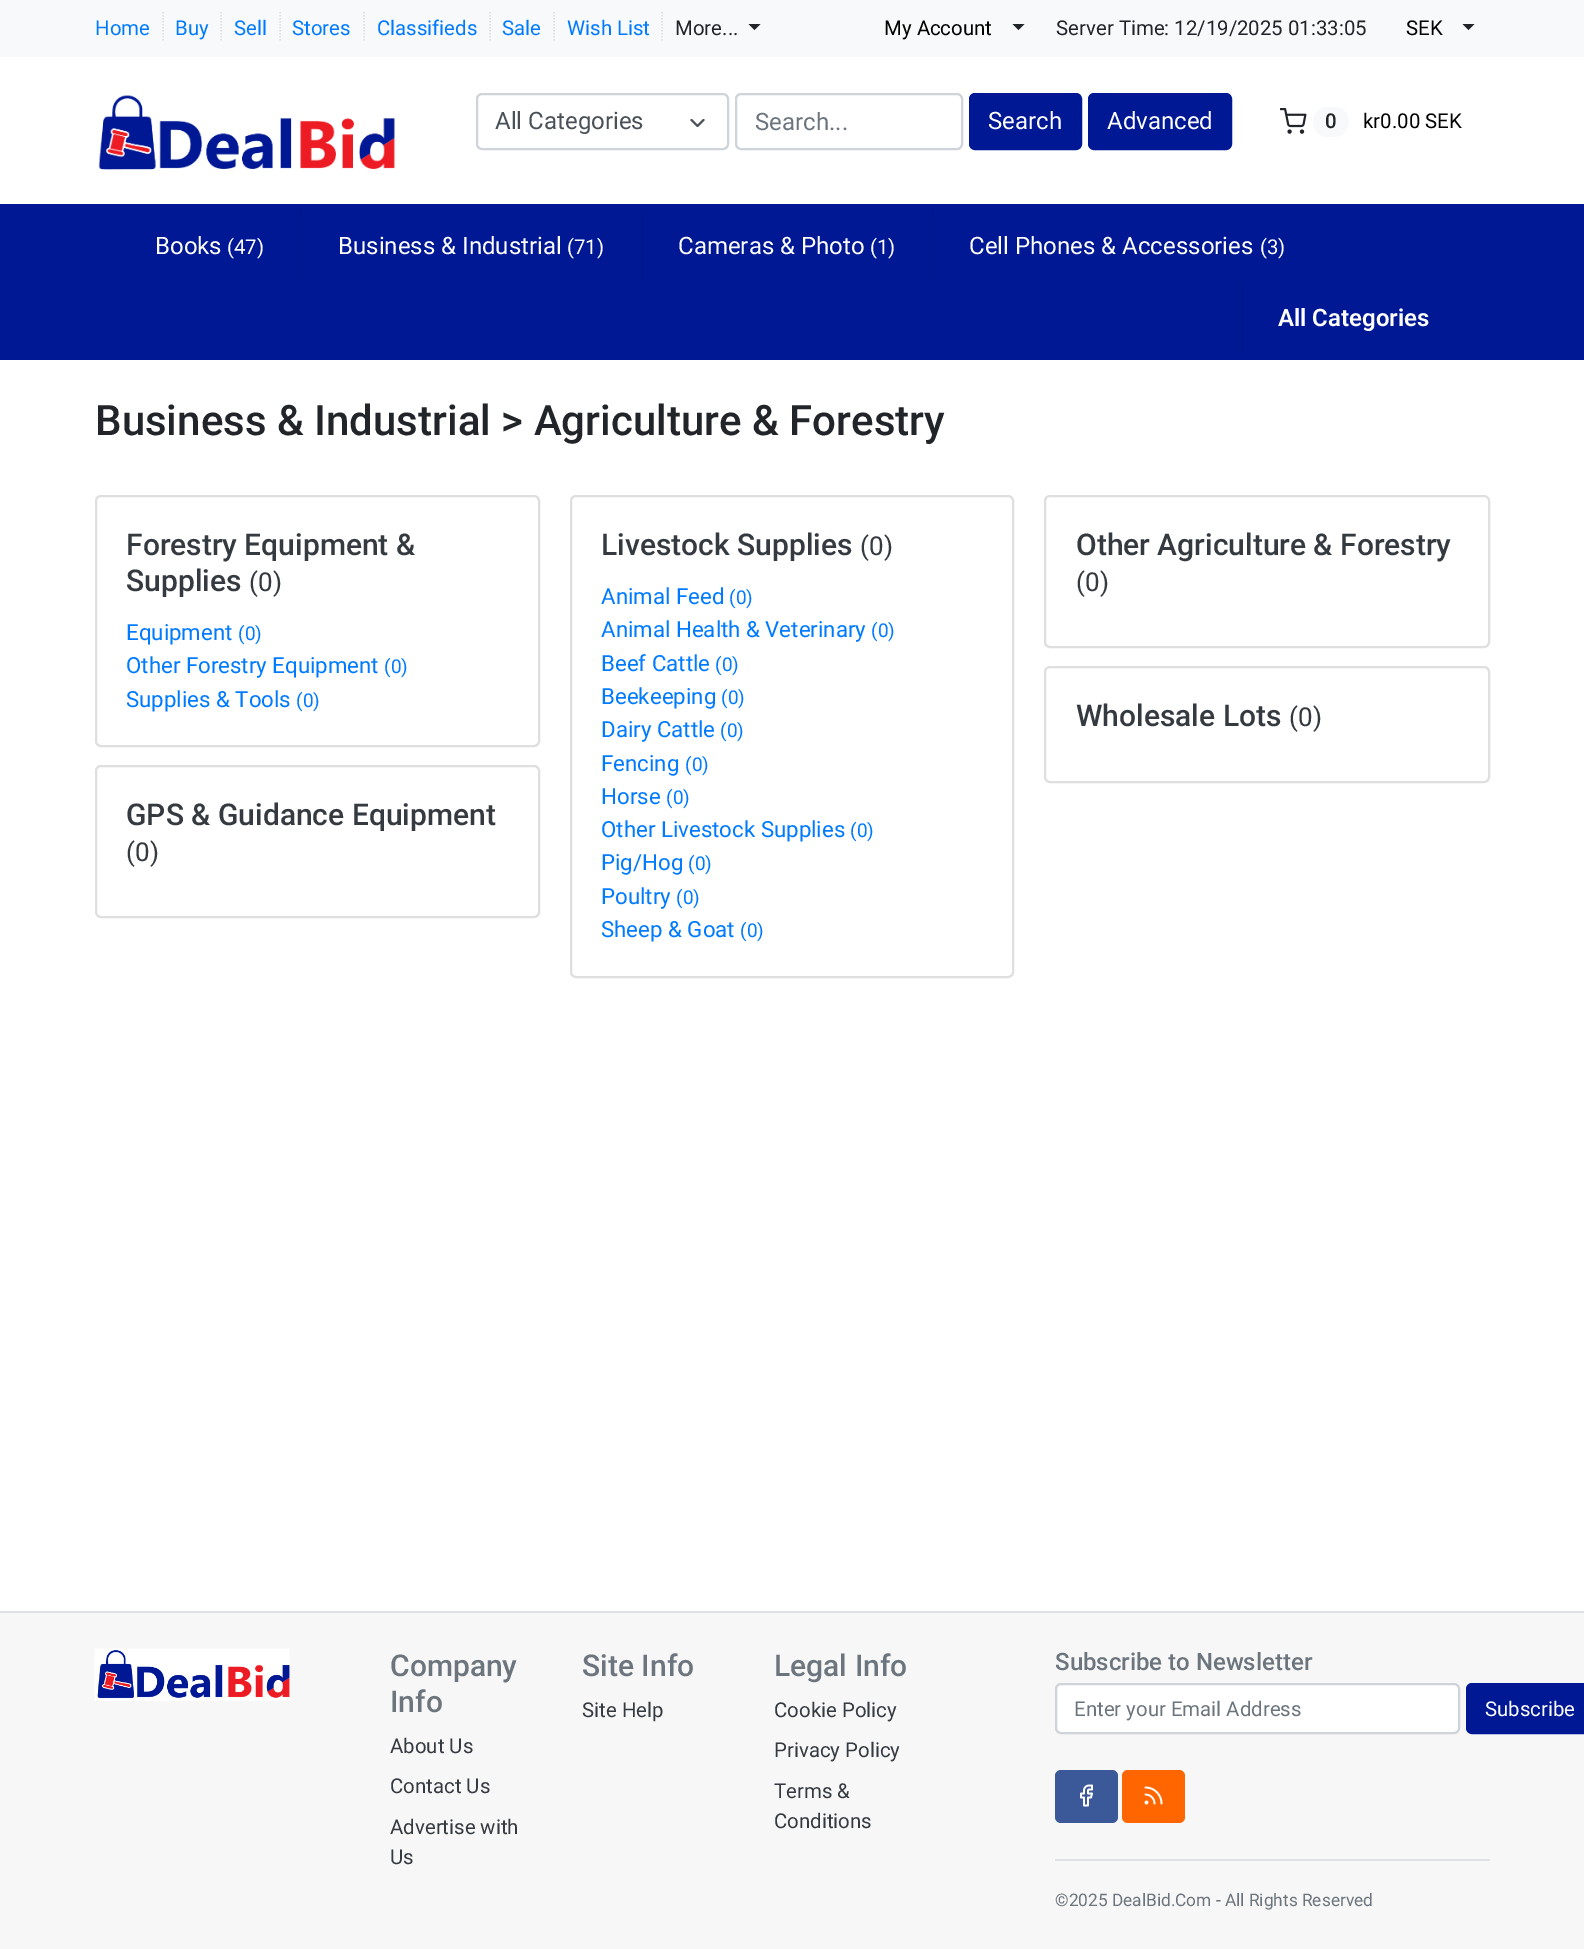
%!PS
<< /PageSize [1584 1949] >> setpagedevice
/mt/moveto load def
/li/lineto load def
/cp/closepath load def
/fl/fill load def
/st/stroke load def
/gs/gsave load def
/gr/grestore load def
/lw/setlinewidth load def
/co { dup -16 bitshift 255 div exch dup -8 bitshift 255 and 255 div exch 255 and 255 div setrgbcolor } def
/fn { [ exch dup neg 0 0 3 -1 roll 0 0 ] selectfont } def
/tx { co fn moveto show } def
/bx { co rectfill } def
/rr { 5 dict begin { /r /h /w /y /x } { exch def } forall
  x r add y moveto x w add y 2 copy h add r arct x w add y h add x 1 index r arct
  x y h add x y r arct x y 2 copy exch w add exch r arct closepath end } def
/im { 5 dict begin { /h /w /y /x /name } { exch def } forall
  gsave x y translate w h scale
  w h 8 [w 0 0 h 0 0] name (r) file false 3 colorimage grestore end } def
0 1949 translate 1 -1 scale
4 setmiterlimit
0 0 1584 1949 16#FFFFFF bx
0 0 1584 57 16#F8F9FA bx
16#E0E0E0 co
1.5 lw
[1.5 1.5] 0 setdash
163 12 mt 163 42 li st
221 12 mt 221 42 li st
280 12 mt 280 42 li st
364 12 mt 364 42 li st
490 12 mt 490 42 li st
554 12 mt 554 42 li st
662 12 mt 662 42 li st
16#212529 co
748.5 24 mt 760.5 24 li 754.5 30 li cp fl
1012.5 24 mt 1024.5 24 li 1018.5 30 li cp fl
1462.5 24 mt 1474.5 24 li 1468.5 30 li cp fl
(media/1.raw) 98 95 297 75 im
16#CED4DA co
2 lw
[] 0 setdash
477 94 251 55 5 rr st
16#495057 co
1 setlinecap
1 setlinejoin
691.5 120 mt 697.5 126 li 703.5 120 li st
16#CED4DA co
0 setlinecap
0 setlinejoin
736 94 226 55 5 rr st
16#001894 co
970 94 111 55 5 rr gs fl gr
st
1089 94 142 55 5 rr gs fl gr
st
(media/2.raw) 1280 108 27 26 im
16#F8F9FA co
1313 107 36 30 15 rr fl
0 204 1584 156 16#001894 bx
300 210 2 72 16#00178D bx
641 210 2 72 16#00178D bx
932 210 2 72 16#00178D bx
1241 282 2 72 16#00178D bx
16#DFDFDF co
96 496 443 250 5 rr st
571 496 442 481 5 rr st
1045 496 444 151 5 rr st
1045 667 444 115 5 rr st
96 766 443 151 5 rr st
0 1613 1584 336 16#F7F7F7 bx
0 1611 1584 2 16#DEE2E6 bx
(media/3.raw) 94 1648 196 53 im
16#FFFFFF co
1056 1684 403 49 5 rr gs fl gr
16#CED4DA co
st
16#001894 co
1467 1684 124 49 5 rr gs fl gr
st
16#3B5998 co
1055 1770 63 53 6 rr fl
(media/4.raw) 1080 1784 13 23 im
16#FF6600 co
1122 1770 63 53 6 rr fl
(media/5.raw) 1144 1786 19 19 im
1055 1859 435 2 16#DEE2E6 bx
(Home) 95 35 /Roboto-Regular 20.4 16#007BFF tx
(Buy) 175 35 /Roboto-Regular 20.4 16#007BFF tx
(Sell) 234 35 /Roboto-Regular 20.4 16#007BFF tx
(Stores) 292 35 /Roboto-Regular 20.4 16#007BFF tx
(Classifieds) 377 35 /Roboto-Regular 20.4 16#007BFF tx
(Sale) 502 35 /Roboto-Regular 20.4 16#007BFF tx
(Wish List) 567 35 /Roboto-Regular 20.4 16#007BFF tx
(More...) 675 35 /Roboto-Regular 20.4 16#212529 tx
(My Account) 884 35 /Roboto-Regular 20.4 16#000000 tx
(Server Time: 12/19/2025 01:33:05) 1056 35 /Roboto-Regular 20.4 16#212529 tx
(SEK) 1406 35 /Roboto-Regular 20.4 16#000000 tx
(All Categories) 495 129 /Roboto-Regular 24 16#495057 tx
(Search...) 755 130 /Roboto-Regular 24 16#6C757D tx
(Search) 988 129 /Roboto-Regular 24 16#FFFFFF tx
(Advanced) 1107 129 /Roboto-Regular 24 16#FFFFFF tx
(0) 1325 128 /Roboto-Medium 20.4 16#212529 tx
(kr0.00 SEK) 1363 128 /Roboto-Regular 20.4 16#000000 tx
(Books) 155 254 /Roboto-Regular 24 16#FFFFFF tx
(\(47\)) 227 254 /Roboto-Regular 20.4 16#FFFFFF tx
(Business & Industrial) 338 254 /Roboto-Regular 24 16#FFFFFF tx
(\(71\)) 567 254 /Roboto-Regular 20.4 16#FFFFFF tx
(Cameras & Photo) 678 254 /Roboto-Regular 24 16#FFFFFF tx
(\(1\)) 870 254 /Roboto-Regular 20.4 16#FFFFFF tx
(Cell Phones & Accessories) 969 254 /Roboto-Regular 24 16#FFFFFF tx
(\(3\)) 1260 254 /Roboto-Regular 20.4 16#FFFFFF tx
(All Categories) 1278 326 /Roboto-SemiBold 24 16#FFFFFF tx
(Business & Industrial > Agriculture & Forestry) 95 435 /Roboto-Medium 42 16#212529 tx
(Forestry Equipment &) 126 555 /Roboto-Medium 30 16#343A40 tx
(Supplies) 126 591 /Roboto-Medium 30 16#343A40 tx
(\(0\)) 249 591 /Roboto-Regular 26 16#343A40 tx
(Equipment) 126 640 /Roboto-Regular 22.25 16#007BFF tx
(\(0\)) 238 640 /Roboto-Regular 19 16#007BFF tx
(Other Forestry Equipment) 126 673 /Roboto-Regular 22.25 16#007BFF tx
(\(0\)) 384 673 /Roboto-Regular 19 16#007BFF tx
(Supplies & Tools) 126 707 /Roboto-Regular 22.25 16#007BFF tx
(\(0\)) 296 707 /Roboto-Regular 19 16#007BFF tx
(Livestock Supplies) 601 555 /Roboto-Medium 30 16#343A40 tx
(\(0\)) 860 555 /Roboto-Regular 26 16#343A40 tx
(Animal Feed) 601 604 /Roboto-Regular 22.25 16#007BFF tx
(\(0\)) 729 604 /Roboto-Regular 19 16#007BFF tx
(Animal Health & Veterinary) 601 637 /Roboto-Regular 22.25 16#007BFF tx
(\(0\)) 871 637 /Roboto-Regular 19 16#007BFF tx
(Beef Cattle) 601 671 /Roboto-Regular 22.25 16#007BFF tx
(\(0\)) 715 671 /Roboto-Regular 19 16#007BFF tx
(Beekeeping) 601 704 /Roboto-Regular 22.25 16#007BFF tx
(\(0\)) 721 704 /Roboto-Regular 19 16#007BFF tx
(Dairy Cattle) 601 737 /Roboto-Regular 22.25 16#007BFF tx
(\(0\)) 720 737 /Roboto-Regular 19 16#007BFF tx
(Fencing) 601 771 /Roboto-Regular 22.25 16#007BFF tx
(\(0\)) 685 771 /Roboto-Regular 19 16#007BFF tx
(Horse) 601 804 /Roboto-Regular 22.25 16#007BFF tx
(\(0\)) 666 804 /Roboto-Regular 19 16#007BFF tx
(Other Livestock Supplies) 601 837 /Roboto-Regular 22.25 16#007BFF tx
(\(0\)) 850 837 /Roboto-Regular 19 16#007BFF tx
(Pig/Hog) 601 870 /Roboto-Regular 22.25 16#007BFF tx
(\(0\)) 688 870 /Roboto-Regular 19 16#007BFF tx
(Poultry) 601 904 /Roboto-Regular 22.25 16#007BFF tx
(\(0\)) 676 904 /Roboto-Regular 19 16#007BFF tx
(Sheep & Goat) 601 937 /Roboto-Regular 22.25 16#007BFF tx
(\(0\)) 740 937 /Roboto-Regular 19 16#007BFF tx
(Other Agriculture & Forestry) 1076 555 /Roboto-Medium 30 16#343A40 tx
(\(0\)) 1076 591 /Roboto-Regular 26 16#343A40 tx
(Wholesale Lots) 1076 726 /Roboto-Medium 30 16#343A40 tx
(\(0\)) 1289 726 /Roboto-Regular 26 16#343A40 tx
(GPS & Guidance Equipment) 126 825 /Roboto-Medium 30 16#343A40 tx
(\(0\)) 126 861 /Roboto-Regular 26 16#343A40 tx
(Company) 390 1676 /Roboto-Medium 30 16#6C757D tx
(Info) 390 1712 /Roboto-Medium 30 16#6C757D tx
(About Us) 390 1753 /Roboto-Regular 20.4 16#343A40 tx
(Contact Us) 390 1793 /Roboto-Regular 20.4 16#343A40 tx
(Advertise with) 390 1834 /Roboto-Regular 20.4 16#343A40 tx
(Us) 390 1864 /Roboto-Regular 20.4 16#343A40 tx
(Site Info) 582 1676 /Roboto-Medium 30 16#6C757D tx
(Site Help) 582 1717 /Roboto-Regular 20.4 16#343A40 tx
(Legal Info) 774 1676 /Roboto-Medium 30 16#6C757D tx
(Cookie Policy) 774 1717 /Roboto-Regular 20.4 16#343A40 tx
(Privacy Policy) 774 1757 /Roboto-Regular 20.4 16#343A40 tx
(Terms &) 774 1798 /Roboto-Regular 20.4 16#343A40 tx
(Conditions) 774 1828 /Roboto-Regular 20.4 16#343A40 tx
(Subscribe to Newsletter) 1055 1670 /Roboto-Medium 24 16#6C757D tx
(Enter your Email Address) 1074 1716 /Roboto-Regular 20.4 16#6C757D tx
(Subscribe) 1485 1716 /Roboto-Regular 20.4 16#FFFFFF tx
(©2025 DealBid.Com - All Rights Reserved) 1055 1906 /Roboto-Regular 17.3 16#6C757D tx
showpage
